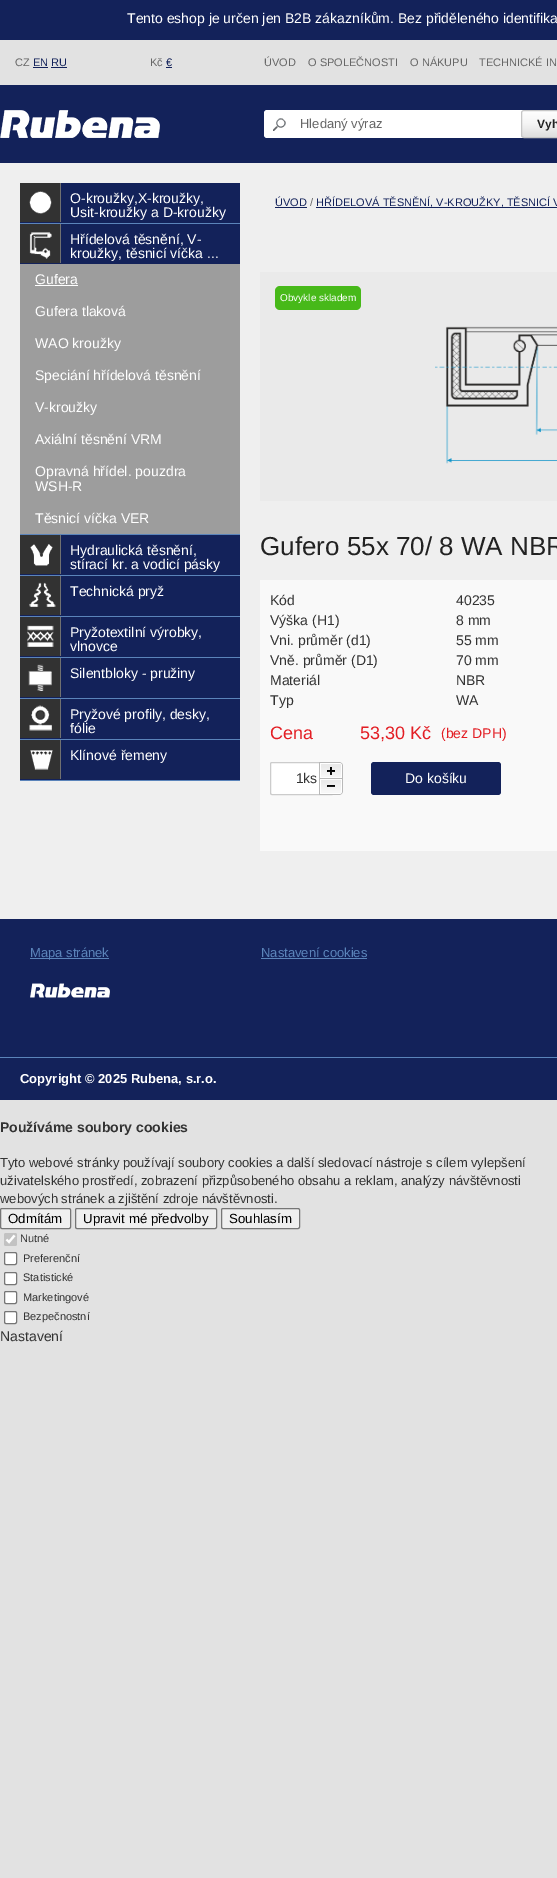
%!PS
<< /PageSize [557 1878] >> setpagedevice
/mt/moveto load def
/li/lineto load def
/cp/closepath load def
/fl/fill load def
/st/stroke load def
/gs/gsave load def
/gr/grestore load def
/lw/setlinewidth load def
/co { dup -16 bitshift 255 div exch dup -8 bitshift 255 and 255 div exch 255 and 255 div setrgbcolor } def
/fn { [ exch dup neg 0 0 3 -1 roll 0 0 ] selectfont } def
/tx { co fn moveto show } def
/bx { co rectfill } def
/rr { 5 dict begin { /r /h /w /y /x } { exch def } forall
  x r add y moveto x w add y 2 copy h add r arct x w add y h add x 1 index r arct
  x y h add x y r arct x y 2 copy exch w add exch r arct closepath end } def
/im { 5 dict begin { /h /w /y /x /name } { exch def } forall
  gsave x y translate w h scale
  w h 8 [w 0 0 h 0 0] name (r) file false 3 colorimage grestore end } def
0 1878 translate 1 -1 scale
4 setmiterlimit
0 0 557 1878 16#E2E2E2 bx
0 0 557 40 16#13225A bx
0 85 557 78 16#13225A bx
33 67 15 1 16#13225A bx
51 67 16 1 16#13225A bx
166 67 6 1 16#13225A bx
(media/1.raw) 0 110 160 28 im
16#FFFFFF co
264 110 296 28 3 rr fl
(media/2.raw) 273 118 13 13 im
gs
521 110 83 28 3 rr clip newpath
gs 521 111 mt 557 111 li 557 137 li 521 137 li cp clip newpath
<< /ShadingType 2 /ColorSpace /DeviceRGB /Coords [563 111 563 137] /Extend [true true] /Function << /FunctionType 3 /Domain [0 1] /Functions [<< /FunctionType 2 /Domain [0 1] /C0 [.996 .996 .996] /C1 [.996 .996 .996] /N 1 >> << /FunctionType 2 /Domain [0 1] /C0 [.996 .996 .996] /C1 [.961 .961 .961] /N 1 >> << /FunctionType 2 /Domain [0 1] /C0 [.961 .961 .961] /C1 [.871 .871 .871] /N 1 >>] /Bounds [.01 .48] /Encode [0 1 0 1 0 1] >> >> shfill gr
gr
16#C6C6C6 co
521.5 110.5 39 27 2.5 rr st
0 163 557 756 16#EFEFEF bx
20 183 220 40 16#13225A bx
20 223 220 1 16#5B84BA bx
(media/3.raw) 20 183 41 39 im
20 224 220 40 16#13225A bx
20 534 220 1 16#5B84BA bx
(media/4.raw) 20 224 41 39 im
20 264 220 270 16#9D9D9D bx
35 285 43 1 16#FFFFFF bx
20 535 220 40 16#13225A bx
20 575 220 1 16#5B84BA bx
(media/5.raw) 20 535 41 39 im
20 576 220 40 16#13225A bx
20 616 220 1 16#5B84BA bx
(media/6.raw) 20 576 41 39 im
20 617 220 40 16#13225A bx
20 657 220 1 16#5B84BA bx
(media/7.raw) 20 617 41 39 im
20 658 220 40 16#13225A bx
20 698 220 1 16#5B84BA bx
(media/8.raw) 20 658 41 39 im
20 699 220 40 16#13225A bx
20 739 220 1 16#5B84BA bx
(media/9.raw) 20 699 41 39 im
20 740 220 40 16#13225A bx
20 780 220 1 16#5B84BA bx
(media/10.raw) 20 740 41 39 im
275 207 32 1 16#13225A bx
316 207 241 1 16#13225A bx
260 272 297 229 16#EAEAEA bx
16#47B919 co
275 286 86 24 5 rr fl
(media/11.raw) 435 326 122 138 im
260 580 297 271 16#F9F9F9 bx
16#FFFFFF co
270.5 762.5 63 32 1.5 rr gs fl gr
16#CCCCCC co
st
(media/12.raw) 319 762 24 17 im
(media/13.raw) 319 779 24 16 im
16#13225A co
371 762 130 33 3 rr fl
0 919 557 138 16#13225A bx
30 958 79 1 16#5B84BA bx
(media/14.raw) 30 983 80 15 im
261 958 106 1 16#5B84BA bx
0 1058 557 42 16#13225A bx
0 1057 557 1 16#5B84BA bx
16#EFEFEF co
.5 1208.5 70 20 1.5 rr gs fl gr
16#767676 co
st
16#EFEFEF co
75.5 1208.5 141 20 1.5 rr gs fl gr
16#767676 co
st
16#EFEFEF co
221.5 1208.5 78 20 1.5 rr gs fl gr
16#767676 co
st
16#C2C2C2 co
4 1233 13 13 2 rr fl
16#FFFFFF co
2.1 lw
6.5 1239.5 mt 9 1242 li 14.5 1235.5 li st
4.5 1252.5 12 12 1.5 rr gs fl gr
16#767676 co
1 lw
st
16#FFFFFF co
4.5 1272.5 12 12 1.5 rr gs fl gr
16#767676 co
st
16#FFFFFF co
4.5 1291.5 12 12 1.5 rr gs fl gr
16#767676 co
st
16#FFFFFF co
4.5 1311.5 12 12 1.5 rr gs fl gr
16#767676 co
st
(Tento eshop je určen jen B2B zákazníkům. Bez přiděleného identifika) 127 23 /LiberationSans-Regular 14 16#FFFFFF tx
(CZ) 15 66 /LiberationSans-Regular 11 16#666666 tx
(EN RU) 33 66 /LiberationSans-Regular 11 16#13225A tx
(Kč) 150 66 /LiberationSans-Regular 11 16#666666 tx
(€) 166 66 /LiberationSans-Regular 11 16#13225A tx
(ÚVOD) 264 66 /LiberationSans-Regular 11 16#666666 tx
(O SPOLEČNOSTI) 308 66 /LiberationSans-Regular 11 16#666666 tx
(O NÁKUPU) 410 66 /LiberationSans-Regular 11 16#666666 tx
(TECHNICKÉ IN) 479 66 /LiberationSans-Regular 11 16#666666 tx
(Hledaný výraz) 300 128 /LiberationSans-Regular 13 16#666666 tx
(Vyh) 537 128 /LiberationSans-Bold 12 16#222222 tx
(O-kroužky,X-kroužky,) 70 203 /LiberationSans-Regular 14 16#FFFFFF tx
(Usit-kroužky a D-kroužky) 70 217 /LiberationSans-Regular 14 16#FFFFFF tx
(Hřídelová těsnění, V-) 70 244 /LiberationSans-Regular 14 16#FFFFFF tx
(kroužky, těsnicí víčka ...) 70 258 /LiberationSans-Regular 14 16#FFFFFF tx
(Gufera) 35 284 /LiberationSans-Regular 14 16#FFFFFF tx
(Gufera tlaková) 35 316 /LiberationSans-Regular 14 16#FFFFFF tx
(WAO kroužky) 35 348 /LiberationSans-Regular 14 16#FFFFFF tx
(Speciání hřídelová těsnění) 35 380 /LiberationSans-Regular 14 16#FFFFFF tx
(V-kroužky) 35 412 /LiberationSans-Regular 14 16#FFFFFF tx
(Axiální těsnění VRM) 35 444 /LiberationSans-Regular 14 16#FFFFFF tx
(Opravná hřídel. pouzdra) 35 476 /LiberationSans-Regular 14 16#FFFFFF tx
(WSH-R) 35 491 /LiberationSans-Regular 14 16#FFFFFF tx
(Těsnicí víčka VER) 35 523 /LiberationSans-Regular 14 16#FFFFFF tx
(Hydraulická těsnění,) 70 555 /LiberationSans-Regular 14 16#FFFFFF tx
(stírací kr. a vodicí pásky) 70 569 /LiberationSans-Regular 14 16#FFFFFF tx
(Technická pryž) 70 596 /LiberationSans-Regular 14 16#FFFFFF tx
(Pryžotextilní výrobky,) 70 637 /LiberationSans-Regular 14 16#FFFFFF tx
(vlnovce) 70 651 /LiberationSans-Regular 14 16#FFFFFF tx
(Silentbloky - pružiny) 70 678 /LiberationSans-Regular 14 16#FFFFFF tx
(Pryžové profily, desky,) 70 719 /LiberationSans-Regular 14 16#FFFFFF tx
(fólie) 70 733 /LiberationSans-Regular 14 16#FFFFFF tx
(Klínové řemeny) 70 760 /LiberationSans-Regular 14 16#FFFFFF tx
(ÚVOD) 275 206 /LiberationSans-Regular 11 16#13225A tx
(/) 310 206 /LiberationSans-Regular 11 16#666666 tx
(HŘÍDELOVÁ TĚSNĚNÍ, V-KROUŽKY, TĚSNICÍ V) 316 206 /LiberationSans-Regular 11 16#13225A tx
(Obvykle skladem) 280 301 /LiberationSans-Regular 10 16#FFFFFF tx
(Gufero 55x 70/ 8 WA NBR) 260 555 /LiberationSans-Regular 26 16#222222 tx
(Kód) 270 605 /LiberationSans-Regular 14 16#333333 tx
(40235) 456 605 /LiberationSans-Regular 14 16#333333 tx
(Výška \(H1\)) 270 625 /LiberationSans-Regular 14 16#333333 tx
(8 mm) 456 625 /LiberationSans-Regular 14 16#333333 tx
(Vni. průměr \(d1\)) 270 645 /LiberationSans-Regular 14 16#333333 tx
(55 mm) 456 645 /LiberationSans-Regular 14 16#333333 tx
(Vně. průměr \(D1\)) 270 665 /LiberationSans-Regular 14 16#333333 tx
(70 mm) 456 665 /LiberationSans-Regular 14 16#333333 tx
(Materiál) 270 685 /LiberationSans-Regular 14 16#333333 tx
(NBR) 456 685 /LiberationSans-Regular 14 16#333333 tx
(Typ) 270 705 /LiberationSans-Regular 14 16#333333 tx
(WA) 456 705 /LiberationSans-Regular 14 16#333333 tx
(Cena) 270 739 /LiberationSans-Regular 18 16#E31E24 tx
(53,30 Kč) 360 739 /LiberationSans-Regular 18 16#E31E24 tx
(\(bez DPH\)) 441 738 /LiberationSans-Regular 14 16#E31E24 tx
(1) 296 783 /LiberationSans-Regular 14 16#333333 tx
(ks) 303 783 /LiberationSans-Regular 14 16#333333 tx
(Do košíku) 405 783 /LiberationSans-Regular 14 16#FFFFFF tx
(Mapa stránek) 30 957 /LiberationSans-Regular 13 16#5B84BA tx
(Nastavení cookies) 261 957 /LiberationSans-Regular 13 16#5B84BA tx
(Copyright © 2025 Rubena, s.r.o.) 20 1083 /LiberationSans-Bold 13 16#FFFFFF tx
(Používáme soubory cookies) 0 1132 /LiberationSans-Bold 14 16#333333 tx
(Tyto webové stránky používají soubory cookies a další sledovací nástroje s cílem vylepšení) 0 1167 /LiberationSans-Regular 13 16#333333 tx
(uživatelského prostředí, zobrazení přizpůsobeného obsahu a reklam, analýzy návštěvnosti) 0 1185 /LiberationSans-Regular 13 16#333333 tx
(webových stránek a zjištění zdroje návštěvnosti.) 0 1203 /LiberationSans-Regular 13 16#333333 tx
(Odmítám) 8 1223 /LiberationSans-Regular 13.25 16#000000 tx
(Upravit mé předvolby) 83 1223 /LiberationSans-Regular 13.25 16#000000 tx
(Souhlasím) 229 1223 /LiberationSans-Regular 13.25 16#000000 tx
(Nutné) 20 1242 /LiberationSans-Regular 11 16#333333 tx
(Preferenční) 23 1262 /LiberationSans-Regular 11 16#333333 tx
(Statistické) 23 1281 /LiberationSans-Regular 11 16#333333 tx
(Marketingové) 23 1301 /LiberationSans-Regular 11 16#333333 tx
(Bezpečnostní) 23 1320 /LiberationSans-Regular 11 16#333333 tx
(Nastavení) 0 1341 /LiberationSans-Regular 14 16#333333 tx
showpage
